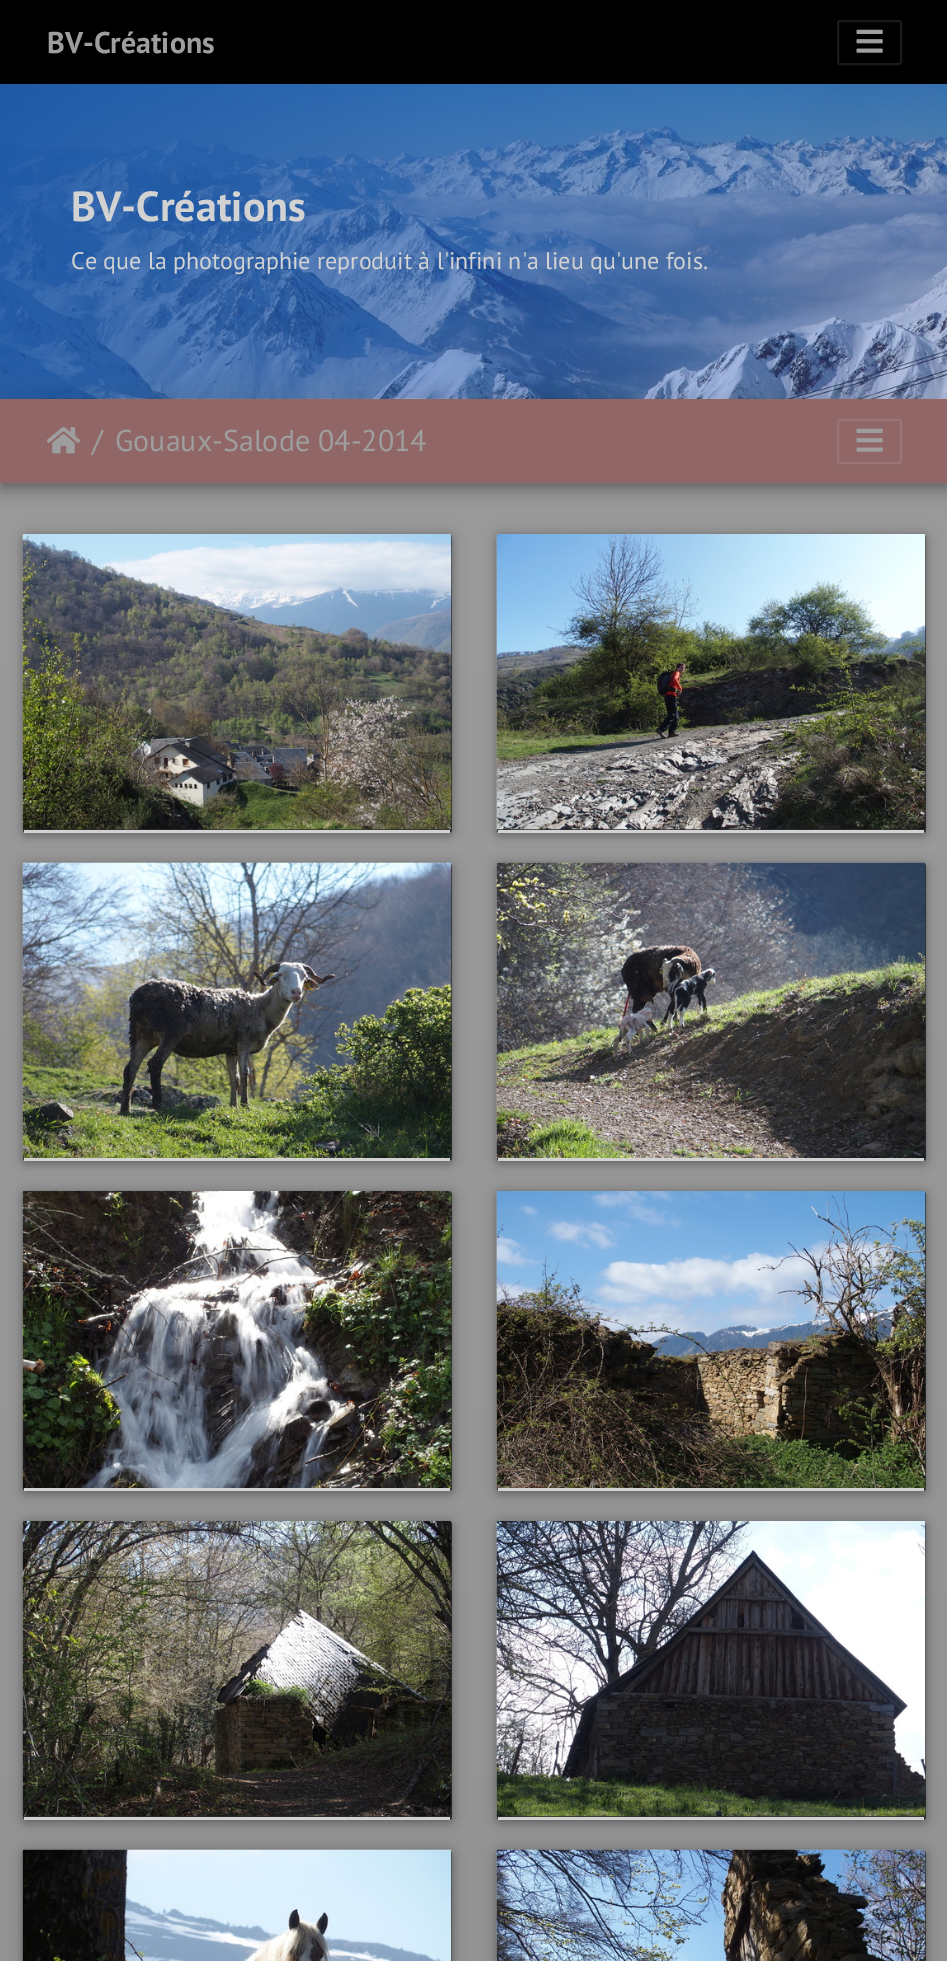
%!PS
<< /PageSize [947 1961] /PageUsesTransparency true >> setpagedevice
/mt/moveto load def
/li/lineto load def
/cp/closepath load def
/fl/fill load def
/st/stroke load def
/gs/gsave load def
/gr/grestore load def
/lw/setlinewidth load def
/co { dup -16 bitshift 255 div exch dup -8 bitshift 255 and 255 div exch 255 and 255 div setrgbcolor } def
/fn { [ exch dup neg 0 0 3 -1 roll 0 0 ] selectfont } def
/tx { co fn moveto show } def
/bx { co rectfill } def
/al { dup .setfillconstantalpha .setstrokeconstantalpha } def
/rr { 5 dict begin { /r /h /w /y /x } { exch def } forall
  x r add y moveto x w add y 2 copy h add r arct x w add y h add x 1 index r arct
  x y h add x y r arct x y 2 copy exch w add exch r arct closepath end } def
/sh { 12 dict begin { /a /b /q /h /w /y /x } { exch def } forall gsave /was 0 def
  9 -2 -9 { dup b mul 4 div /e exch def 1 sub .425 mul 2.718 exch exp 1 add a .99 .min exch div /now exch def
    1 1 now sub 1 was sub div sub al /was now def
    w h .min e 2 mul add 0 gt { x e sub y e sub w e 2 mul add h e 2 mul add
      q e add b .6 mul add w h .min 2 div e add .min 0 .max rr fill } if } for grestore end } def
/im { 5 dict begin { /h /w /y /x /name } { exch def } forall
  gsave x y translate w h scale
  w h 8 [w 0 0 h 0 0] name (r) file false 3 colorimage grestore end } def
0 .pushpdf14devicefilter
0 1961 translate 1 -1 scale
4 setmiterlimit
0 0 947 1961 16#FFFFFF bx
gs 0 483 mt 947 483 li 947 1961 li 0 1961 li cp clip newpath
<< /ShadingType 2 /ColorSpace /DeviceRGB /Coords [474 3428 474 0] /Extend [true true] /Function << /FunctionType 2 /Domain [0 1] /C0 [.541 .541 .541] /C1 [.62 .62 .62] /N 1 >> >> shfill gr
0 0 947 84 16#000000 bx
16#1A1A1A co
2 lw
838 21 63 43 2 rr st
(media/1.raw) 856 29 27 24 im
(media/2.raw) 0 84 947 315 im
16#000000 co
2 405 945 81 0 4 .2 sh
0 401 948 84 0 13.5 .12 sh
0 408 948 84 0 7.5 .14 sh
0 399 947 84 16#906666 bx
(media/3.raw) 47 427 34 27 im
16#9B7575 co
838 420 63 43 2 rr st
(media/4.raw) 856 428 27 24 im
16#000000 co
23 537 429 299 3 4.5 .23 sh
23 534 429 299 3 7.5 .19 sh
16#2E2E2E co
23 534 429 299 3 rr fl
24 830 426 3 16#D2D2D2 bx
(media/5.raw) 22 534 430 296 im
16#000000 co
497 537 429 299 3 4.5 .23 sh
497 534 429 299 3 7.5 .19 sh
16#2E2E2E co
497 534 429 299 3 rr fl
498 830 426 3 16#D2D2D2 bx
(media/6.raw) 496 534 430 296 im
16#000000 co
23 866 429 298 3 4.5 .23 sh
23 863 429 298 3 7.5 .19 sh
16#2E2E2E co
23 863 429 298 3 rr fl
24 1158 426 3 16#D2D2D2 bx
(media/7.raw) 22 862 430 296 im
16#000000 co
497 866 429 298 3 4.5 .23 sh
497 863 429 298 3 7.5 .19 sh
16#2E2E2E co
497 863 429 298 3 rr fl
498 1158 426 3 16#D2D2D2 bx
(media/8.raw) 496 862 430 296 im
16#000000 co
23 1194 429 300 3 4.5 .23 sh
23 1191 429 300 3 7.5 .19 sh
16#2E2E2E co
23 1191 429 300 3 rr fl
24 1488 426 3 16#D2D2D2 bx
(media/9.raw) 22 1191 430 297 im
16#000000 co
497 1194 429 300 3 4.5 .23 sh
497 1191 429 300 3 7.5 .19 sh
16#2E2E2E co
497 1191 429 300 3 rr fl
498 1488 426 3 16#D2D2D2 bx
(media/10.raw) 496 1191 430 297 im
16#000000 co
23 1524 429 299 3 4.5 .23 sh
23 1521 429 299 3 7.5 .19 sh
16#2E2E2E co
23 1521 429 299 3 rr fl
24 1817 426 3 16#D2D2D2 bx
(media/11.raw) 22 1521 430 296 im
16#000000 co
497 1524 429 299 3 4.5 .23 sh
497 1521 429 299 3 7.5 .19 sh
16#2E2E2E co
497 1521 429 299 3 rr fl
498 1817 426 3 16#D2D2D2 bx
(media/12.raw) 496 1521 430 296 im
16#000000 co
23 1853 429 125 3 4.5 .23 sh
23 1850 429 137 3 7.5 .19 sh
16#2E2E2E co
23 1850 429 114 3 rr fl
(media/13.raw) 22 1849 430 112 im
16#000000 co
497 1853 429 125 3 4.5 .23 sh
497 1850 429 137 3 7.5 .19 sh
16#2E2E2E co
497 1850 429 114 3 rr fl
(media/14.raw) 496 1849 430 112 im
(BV-Créations) 47 53 /PTSans-Bold 30 16#9E9E9E tx
(BV-Créations) 71 221 /PTSans-Bold 42 16#D2D2D2 tx
(Ce que la photographie reproduit à l'infini n'a lieu qu'une fois.) 71 269 /PTSans-Regular 24 16#D2D2D2 tx
(/) 92 451 /PTSans-Regular 30 16#9E9E9E tx
(Gouaux-Salode 04-2014) 115 451 /PTSans-Regular 30 16#9E9E9E tx
.poppdf14devicefilter showpage
